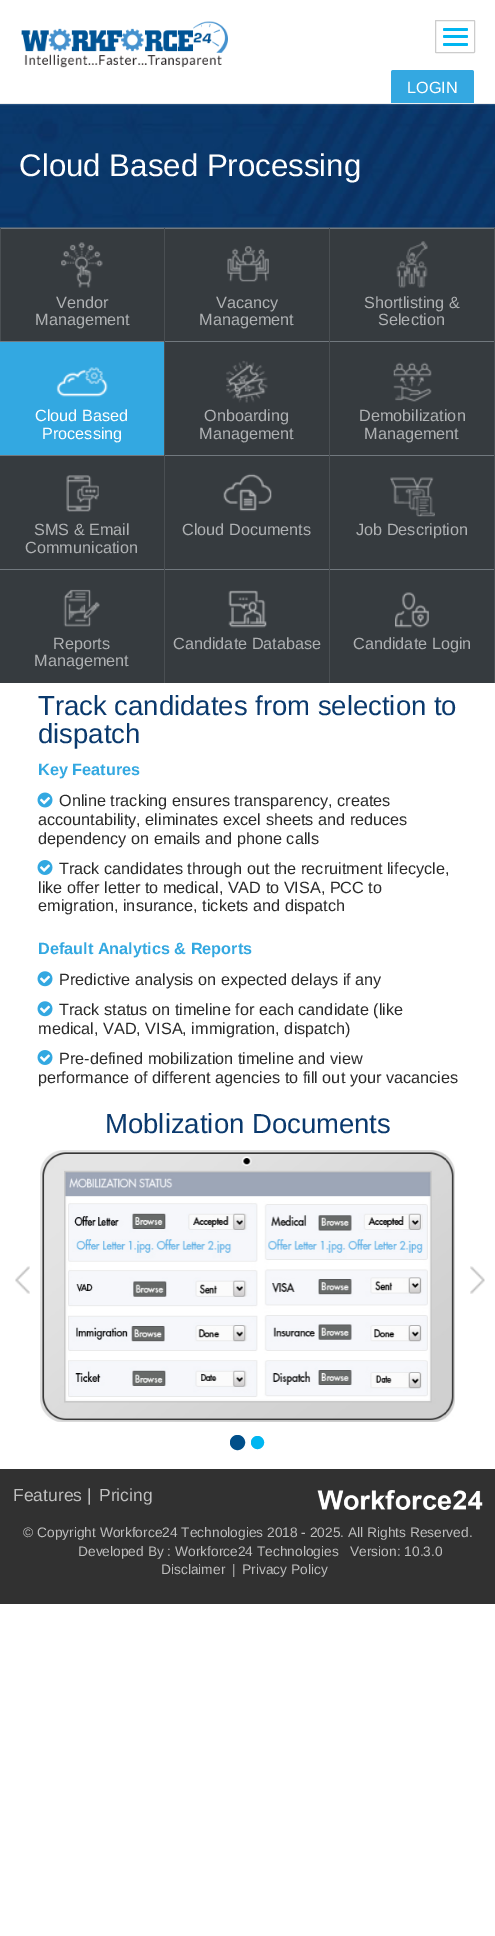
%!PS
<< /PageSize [495 1936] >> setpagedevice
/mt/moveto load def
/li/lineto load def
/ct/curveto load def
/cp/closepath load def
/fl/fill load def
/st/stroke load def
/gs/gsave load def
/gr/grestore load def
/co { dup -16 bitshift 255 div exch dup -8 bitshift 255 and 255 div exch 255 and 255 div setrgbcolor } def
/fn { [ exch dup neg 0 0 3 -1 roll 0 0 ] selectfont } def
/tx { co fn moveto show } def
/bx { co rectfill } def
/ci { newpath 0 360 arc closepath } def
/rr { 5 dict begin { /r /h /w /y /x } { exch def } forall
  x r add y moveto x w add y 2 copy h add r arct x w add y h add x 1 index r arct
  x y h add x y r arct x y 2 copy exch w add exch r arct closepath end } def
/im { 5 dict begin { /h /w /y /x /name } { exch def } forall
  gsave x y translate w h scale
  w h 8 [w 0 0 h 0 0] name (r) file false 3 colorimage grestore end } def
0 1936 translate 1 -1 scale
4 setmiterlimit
0 0 495 1936 16#FFFFFF bx
0 103 495 1 16#EEEEEE bx
(media/1.raw) 21 21 207 47 im
16#CCCCCC co
435.5 20.5 39 32 .5 rr st
16#00B6F1 co
443 28 25 3 1.5 rr fl
443 35 25 3 1.5 rr fl
443 43 25 3 1.5 rr fl
16#34A8E1 co
393.5 70 mt 471.5 70 li 473 70 474 71 474 72.5 ct 474 103 li 391 103 li 391 72.5 li 391 71 392 70 393.5 70 ct cp fl
(media/2.raw) 0 104 495 124 im
(media/3.raw) 0 227 495 1 im
0 229 494 454 16#363B3F bx
0 228 1 113 16#4A4F53 bx
1 228 494 1 16#71787E bx
164 228 1 113 16#4A4F53 bx
(media/4.raw) 61 242 42 46 im
329 228 1 113 16#4A4F53 bx
(media/5.raw) 227 246 42 36 im
494 228 1 113 16#4A4F53 bx
(media/6.raw) 396 241 32 47 im
0 342 164 113 16#33A8E1 bx
0 341 495 1 16#71787E bx
164 341 1 114 16#4A4F53 bx
(media/7.raw) 56 367 52 30 im
329 341 1 114 16#4A4F53 bx
(media/8.raw) 226 360 42 43 im
494 341 1 114 16#4A4F53 bx
(media/9.raw) 393 362 39 40 im
0 455 495 1 16#71787E bx
164 455 1 114 16#4A4F53 bx
(media/10.raw) 66 475 33 37 im
329 455 1 114 16#4A4F53 bx
(media/11.raw) 223 473 49 39 im
494 455 1 114 16#4A4F53 bx
(media/12.raw) 390 477 45 40 im
0 569 495 1 16#71787E bx
164 569 1 114 16#4A4F53 bx
(media/13.raw) 63 589 37 38 im
329 569 1 114 16#4A4F53 bx
(media/14.raw) 228 590 39 38 im
494 569 1 114 16#4A4F53 bx
(media/15.raw) 395 592 34 36 im
(media/16.raw) 37 792 16 16 im
(media/17.raw) 37 860 16 15 im
(media/18.raw) 37 971 16 16 im
(media/18.raw) 37 1001 16 16 im
(media/17.raw) 37 1050 16 15 im
(media/19.raw) 40 1150 415 272 im
(media/20.raw) 15 1266 15 28 im
(media/21.raw) 470 1266 15 28 im
16#004F8A co
237.5 1442.5 7 ci gs fl gr
st
16#00B6F1 co
257.5 1442.5 6 ci gs fl gr
st
0 1469 495 135 16#313131 bx
(media/22.raw) 317 1490 166 20 im
(LOGIN) 407 93 /LiberationSans-Regular 16.25 16#FFFFFF tx
(Cloud Based Processing) 19 176 /LiberationSans-Regular 31.25 16#FFFFFF tx
(Vendor) 56 308 /LiberationSans-Regular 16.25 16#AFB1B3 tx
(Management) 35 325 /LiberationSans-Regular 16.25 16#AFB1B3 tx
(Vacancy) 216 308 /LiberationSans-Regular 16.25 16#AFB1B3 tx
(Management) 199 325 /LiberationSans-Regular 16.25 16#AFB1B3 tx
(Shortlisting &) 364 308 /LiberationSans-Regular 16.25 16#AFB1B3 tx
(Selection) 378 325 /LiberationSans-Regular 16.25 16#AFB1B3 tx
(Cloud Based) 35 421 /LiberationSans-Regular 16.25 16#FFFFFF tx
(Processing) 42 439 /LiberationSans-Regular 16.25 16#FFFFFF tx
(Onboarding) 204 421 /LiberationSans-Regular 16.25 16#AFB1B3 tx
(Management) 199 439 /LiberationSans-Regular 16.25 16#AFB1B3 tx
(Demobilization) 359 421 /LiberationSans-Regular 16.25 16#AFB1B3 tx
(Management) 364 439 /LiberationSans-Regular 16.25 16#AFB1B3 tx
(SMS & Email) 34 535 /LiberationSans-Regular 16.25 16#AFB1B3 tx
(Communication) 25 553 /LiberationSans-Regular 16.25 16#AFB1B3 tx
(Cloud Documents) 182 535 /LiberationSans-Regular 16.25 16#AFB1B3 tx
(Job Description) 356 535 /LiberationSans-Regular 16.25 16#AFB1B3 tx
(Reports) 53 649 /LiberationSans-Regular 16.25 16#AFB1B3 tx
(Management) 34 666 /LiberationSans-Regular 16.25 16#AFB1B3 tx
(Candidate Database) 173 649 /LiberationSans-Regular 16.25 16#AFB1B3 tx
(Candidate Login) 353 649 /LiberationSans-Regular 16.25 16#AFB1B3 tx
(Track candidates from selection to) 38 715 /LiberationSans-Regular 27.5 16#0A396D tx
(dispatch) 38 743 /LiberationSans-Regular 27.5 16#0A396D tx
(Key Features) 38 775 /LiberationSans-Bold 16.25 16#33A8E1 tx
(Online tracking ensures transparency, creates) 59 806 /LiberationSans-Regular 16.25 16#2A2A2A tx
(accountability, eliminates excel sheets and reduces) 38 825 /LiberationSans-Regular 16.25 16#2A2A2A tx
(dependency on emails and phone calls) 38 844 /LiberationSans-Regular 16.25 16#2A2A2A tx
(Track candidates through out the recruitment lifecycle,) 59 874 /LiberationSans-Regular 16.25 16#2A2A2A tx
(like offer letter to medical, VAD to VISA, PCC to) 38 893 /LiberationSans-Regular 16.25 16#2A2A2A tx
(emigration, insurance, tickets and dispatch) 38 911 /LiberationSans-Regular 16.25 16#2A2A2A tx
(Default Analytics & Reports) 38 954 /LiberationSans-Bold 16.25 16#33A8E1 tx
(Predictive analysis on expected delays if any) 59 985 /LiberationSans-Regular 16.25 16#2A2A2A tx
(Track status on timeline for each candidate \(like) 59 1015 /LiberationSans-Regular 16.25 16#2A2A2A tx
(medical, VAD, VISA, immigration, dispatch\)) 38 1034 /LiberationSans-Regular 16.25 16#2A2A2A tx
(Pre-defined mobilization timeline and view) 59 1064 /LiberationSans-Regular 16.25 16#2A2A2A tx
(performance of different agencies to fill out your vacancies) 38 1083 /LiberationSans-Regular 16.25 16#2A2A2A tx
(Moblization Documents) 105 1133 /LiberationSans-Regular 27.5 16#0A396D tx
(Features) 13 1501 /LiberationSans-Regular 17.5 16#BFBFBF tx
(|) 87 1501 /LiberationSans-Regular 17.5 16#BFBFBF tx
(Pricing) 99 1501 /LiberationSans-Regular 17.5 16#BFBFBF tx
(© Copyright Workforce24 Technologies 2018 - 2025. All Rights Reserved.) 23 1537 /LiberationSans-Regular 13.75 16#BFBFBF tx
(Developed By : Workforce24 Technologies) 78 1556 /LiberationSans-Regular 13.75 16#BFBFBF tx
(Version: 10.3.0) 350 1556 /LiberationSans-Regular 13.75 16#BFBFBF tx
(Disclaimer) 161 1574 /LiberationSans-Regular 13.75 16#BFBFBF tx
(|) 232 1574 /LiberationSans-Regular 13.75 16#BFBFBF tx
(Privacy Policy) 242 1574 /LiberationSans-Regular 13.75 16#BFBFBF tx
showpage
